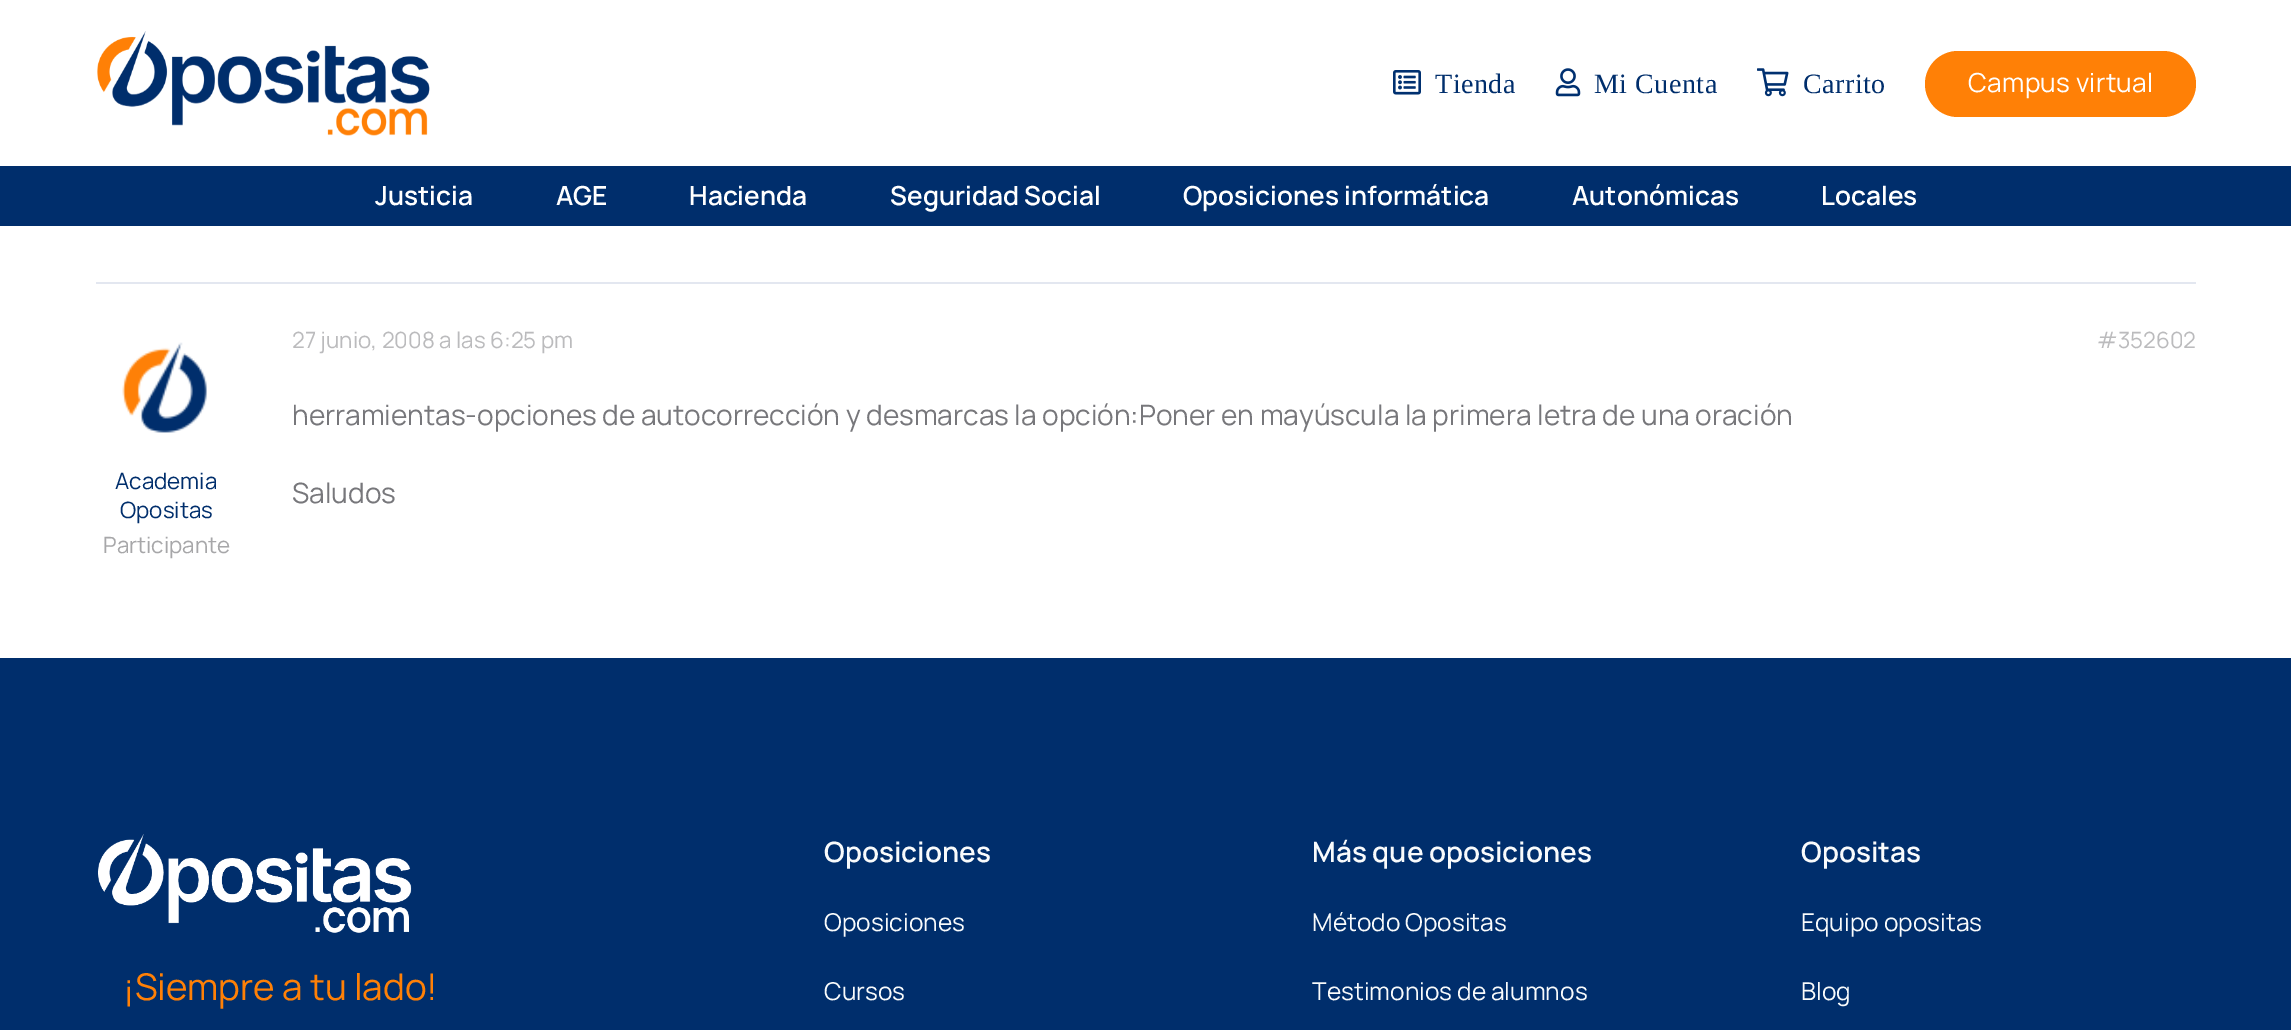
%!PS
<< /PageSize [2291 1030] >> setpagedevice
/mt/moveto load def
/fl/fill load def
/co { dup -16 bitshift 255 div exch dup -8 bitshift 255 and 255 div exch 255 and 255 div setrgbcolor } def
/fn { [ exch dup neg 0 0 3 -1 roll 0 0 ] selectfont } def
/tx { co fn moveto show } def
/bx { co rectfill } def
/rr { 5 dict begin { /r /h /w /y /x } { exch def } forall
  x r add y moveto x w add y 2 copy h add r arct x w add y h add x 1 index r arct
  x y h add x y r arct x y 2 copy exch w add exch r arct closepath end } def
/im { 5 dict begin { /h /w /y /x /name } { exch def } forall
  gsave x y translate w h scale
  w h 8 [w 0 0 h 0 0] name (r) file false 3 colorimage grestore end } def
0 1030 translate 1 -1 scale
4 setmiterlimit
0 0 2291 1030 16#FFFFFF bx
(media/1.raw) 97 31 333 105 im
(media/2.raw) 1393 70 28 25 im
(media/3.raw) 1555 68 26 29 im
(media/4.raw) 1757 68 32 29 im
16#FF8006 co
1925 51 271 66 33 rr fl
0 166 2291 60 16#002E6C bx
96 282 2100 2 16#E3E7F0 bx
(media/5.raw) 122 342 85 91 im
0 658 2291 372 16#002E6C bx
(media/6.raw) 98 834 314 99 im
/LiberationSerif-Regular 28 fn
1435 93 mt .5 0 (Tienda) ashow
1594 93 mt .5 0 (Mi Cuenta) ashow
1803 93 mt .5 0 (Carrito) ashow
/Manrope-ExtraLight 26.25 fn
16#FFFFFF co
1968 92 mt .3 0 (Campus virtual) ashow
(Justicia) 375 205 /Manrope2-ExtraLight 26.25 16#FFFFFF tx
(AGE) 556 205 /Manrope2-ExtraLight 26.25 16#FFFFFF tx
(Hacienda) 689 205 /Manrope2-ExtraLight 26.25 16#FFFFFF tx
(Seguridad Social) 890 205 /Manrope2-ExtraLight 26.25 16#FFFFFF tx
(Oposiciones informática) 1183 205 /Manrope2-ExtraLight 26.25 16#FFFFFF tx
(Autonómicas) 1572 205 /Manrope2-ExtraLight 26.25 16#FFFFFF tx
(Locales) 1821 205 /Manrope2-ExtraLight 26.25 16#FFFFFF tx
(27 junio, 2008 a las 6:25 pm) 292 348 /Manrope-ExtraLight 22.4 16#BBBBBD tx
(#352602) 2097 348 /Manrope-ExtraLight 22.4 16#BBBBBD tx
(herramientas-opciones de autocorrección y desmarcas la opción:Poner en mayúscula la primera letra de una oración) 292 425 /Manrope-ExtraLight 28 16#77777B tx
(Saludos) 292 503 /Manrope-ExtraLight 28 16#77777B tx
(Academia) 115 489 /Manrope-ExtraLight 22.4 16#002E6C tx
(Opositas) 120 518 /Manrope-ExtraLight 22.4 16#002E6C tx
(Participante) 103 553 /Manrope-ExtraLight 22.4 16#A7A7A9 tx
(¡Siempre a tu lado!) 123 1000 /Manrope-ExtraLight 36.75 16#FF8006 tx
(Oposiciones) 824 862 /Manrope2-ExtraLight 28 16#F9FBFC tx
(Oposiciones) 824 931 /Manrope-ExtraLight 24.5 16#F9FBFC tx
(Cursos) 824 1000 /Manrope-ExtraLight 24.5 16#F9FBFC tx
(Más que oposiciones) 1312 862 /Manrope2-ExtraLight 28 16#F9FBFC tx
(Método Opositas) 1312 931 /Manrope-ExtraLight 24.5 16#F9FBFC tx
(Testimonios de alumnos) 1312 1000 /Manrope-ExtraLight 24.5 16#F9FBFC tx
(Opositas) 1801 862 /Manrope2-ExtraLight 28 16#F9FBFC tx
(Equipo opositas) 1801 931 /Manrope-ExtraLight 24.5 16#F9FBFC tx
(Blog) 1801 1000 /Manrope-ExtraLight 24.5 16#F9FBFC tx
showpage
